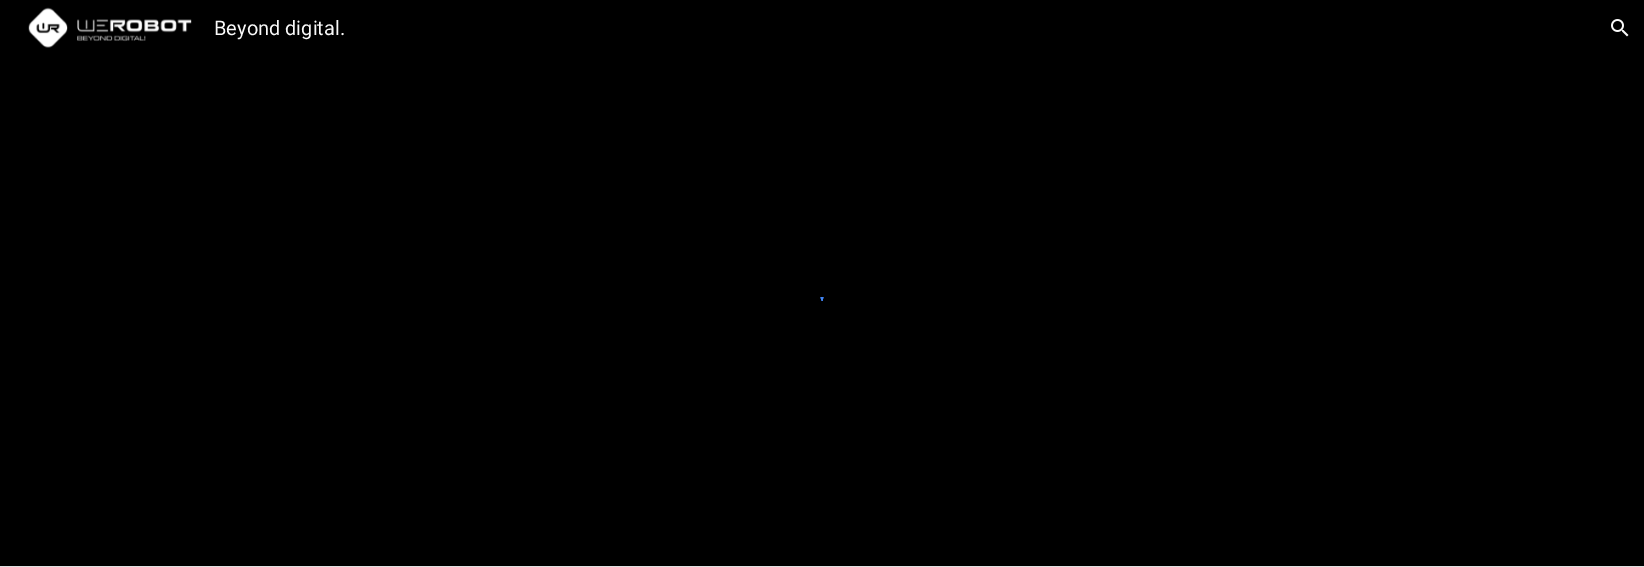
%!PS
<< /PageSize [1644 567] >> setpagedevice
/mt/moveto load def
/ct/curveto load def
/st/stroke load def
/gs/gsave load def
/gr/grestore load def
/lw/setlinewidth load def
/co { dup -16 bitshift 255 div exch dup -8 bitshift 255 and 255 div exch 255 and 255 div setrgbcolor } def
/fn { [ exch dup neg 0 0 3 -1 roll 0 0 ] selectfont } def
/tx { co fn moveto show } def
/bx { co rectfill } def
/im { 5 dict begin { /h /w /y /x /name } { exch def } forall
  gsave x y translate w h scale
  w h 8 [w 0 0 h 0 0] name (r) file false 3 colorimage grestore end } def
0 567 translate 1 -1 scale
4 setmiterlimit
0 0 1644 567 16#000000 bx
(media/1.raw) 28 7 164 41 im
(media/2.raw) 1611 19 18 18 im
0 566 1644 1 16#E0E0E0 bx
gs
808 297 14 28 rectclip
16#4184F2 co
3 lw
821 298.5 mt 837.5 297 839.5 322 823 323.5 ct st
gr
gs
821 297 2 28 rectclip
16#4184F2 co
3 lw
813 320 mt 811 317.5 809.5 314.5 809.5 311 ct 809.5 296 831.5 294 834.5 308.5 ct 835 312.5 834 317 831 320 ct st
gr
gs
822 297 14 28 rectclip
16#4184F2 co
3 lw
821 323.5 mt 804.5 322 806.5 297 823 298.5 ct st
gr
gs
808 297 14 28 rectclip
16#4184F2 co
3 lw
821 298.5 mt 837.5 297 839.5 322 823 323.5 ct st
gr
gs
821 297 2 28 rectclip
16#4184F2 co
3 lw
813 320 mt 811 317.5 809.5 314.5 809.5 311 ct 809.5 296 831.5 294 834.5 308.5 ct 835 312.5 834 317 831 320 ct st
gr
gs
822 297 14 28 rectclip
16#4184F2 co
3 lw
821 323.5 mt 804.5 322 806.5 297 823 298.5 ct st
gr
gs
808 297 14 28 rectclip
16#4184F2 co
3 lw
821 298.5 mt 837.5 297 839.5 322 823 323.5 ct st
gr
gs
821 297 2 28 rectclip
16#4184F2 co
3 lw
813 320 mt 811 317.5 809.5 314.5 809.5 311 ct 809.5 296 831.5 294 834.5 308.5 ct 835 312.5 834 317 831 320 ct st
gr
gs
822 297 14 28 rectclip
16#4184F2 co
3 lw
821 323.5 mt 804.5 322 806.5 297 823 298.5 ct st
gr
gs
808 297 14 28 rectclip
16#4184F2 co
3 lw
821 298.5 mt 837.5 297 839.5 322 823 323.5 ct st
gr
gs
821 297 2 28 rectclip
16#4184F2 co
3 lw
813 320 mt 811 317.5 809.5 314.5 809.5 311 ct 809.5 296 831.5 294 834.5 308.5 ct 835 312.5 834 317 831 320 ct st
gr
gs
822 297 14 28 rectclip
16#4184F2 co
3 lw
821 323.5 mt 804.5 322 806.5 297 823 298.5 ct st
gr
(Beyond digital.) 214 35 /Roboto-Regular 20 16#F9F9F9 tx
showpage
